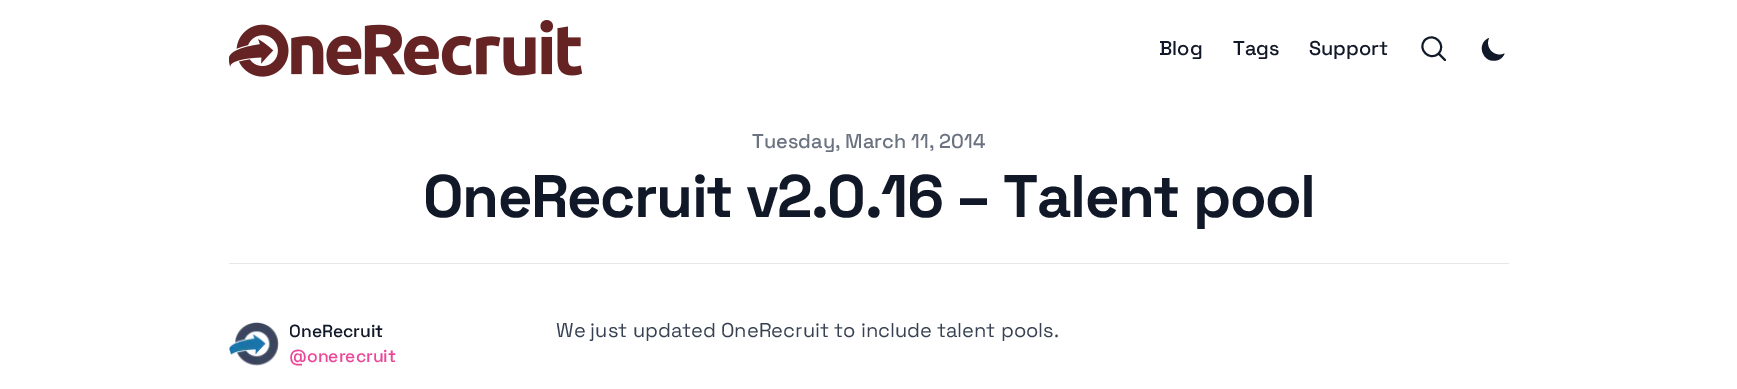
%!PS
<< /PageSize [1737 389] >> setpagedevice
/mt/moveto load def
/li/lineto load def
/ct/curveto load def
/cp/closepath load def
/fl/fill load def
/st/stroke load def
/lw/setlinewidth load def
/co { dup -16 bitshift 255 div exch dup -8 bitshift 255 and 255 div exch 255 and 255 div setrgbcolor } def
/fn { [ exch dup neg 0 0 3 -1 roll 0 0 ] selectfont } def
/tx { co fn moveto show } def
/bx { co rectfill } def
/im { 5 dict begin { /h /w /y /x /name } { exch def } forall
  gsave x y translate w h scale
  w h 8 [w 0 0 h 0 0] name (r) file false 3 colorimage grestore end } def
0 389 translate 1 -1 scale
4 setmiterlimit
0 0 1737 389 16#FFFFFF bx
(media/1.raw) 229 20 354 57 im
16#111827 co
1.9 lw
1 setlinecap
1 setlinejoin
1445 60 mt 1438.5 53.5 li 1438.5 53.5 mt 1447 45 1434 31.5 1425 40 ct 1416.5 49 1430 62 1438.5 53.5 ct cp st
1504.5 53.5 mt 1494.5 58 1484.5 48 1489 38 ct 1475 44 1483.5 65 1498 60 ct 1501 59 1503.5 56.5 1504.5 53.5 ct cp fl
229 263 1280 1 16#E5E7EB bx
(media/2.raw) 229 321 50 45 im
(Blog) 1159 55 /SpaceGrotesk-Medium 20 16#111827 tx
(Tags) 1233 55 /SpaceGrotesk-Medium 20 16#111827 tx
(Support) 1309 55 /SpaceGrotesk-Medium 20 16#111827 tx
(Tuesday, March 11, 2014) 752 148 /SpaceGrotesk-Medium 20 16#6B7280 tx
/SpaceGrotesk-Bold 60 fn
16#111827 co
423 217 mt -1.5 0 (OneRecruit v2.0.16 – Talent pool) ashow
(OneRecruit) 289 337 /SpaceGrotesk-Medium 17.5 16#111827 tx
(@onerecruit) 289 362 /SpaceGrotesk-Medium 17.5 16#EC4899 tx
(We just updated OneRecruit to include talent pools.) 556 337 /SpaceGrotesk-Regular 20 16#374151 tx
showpage
